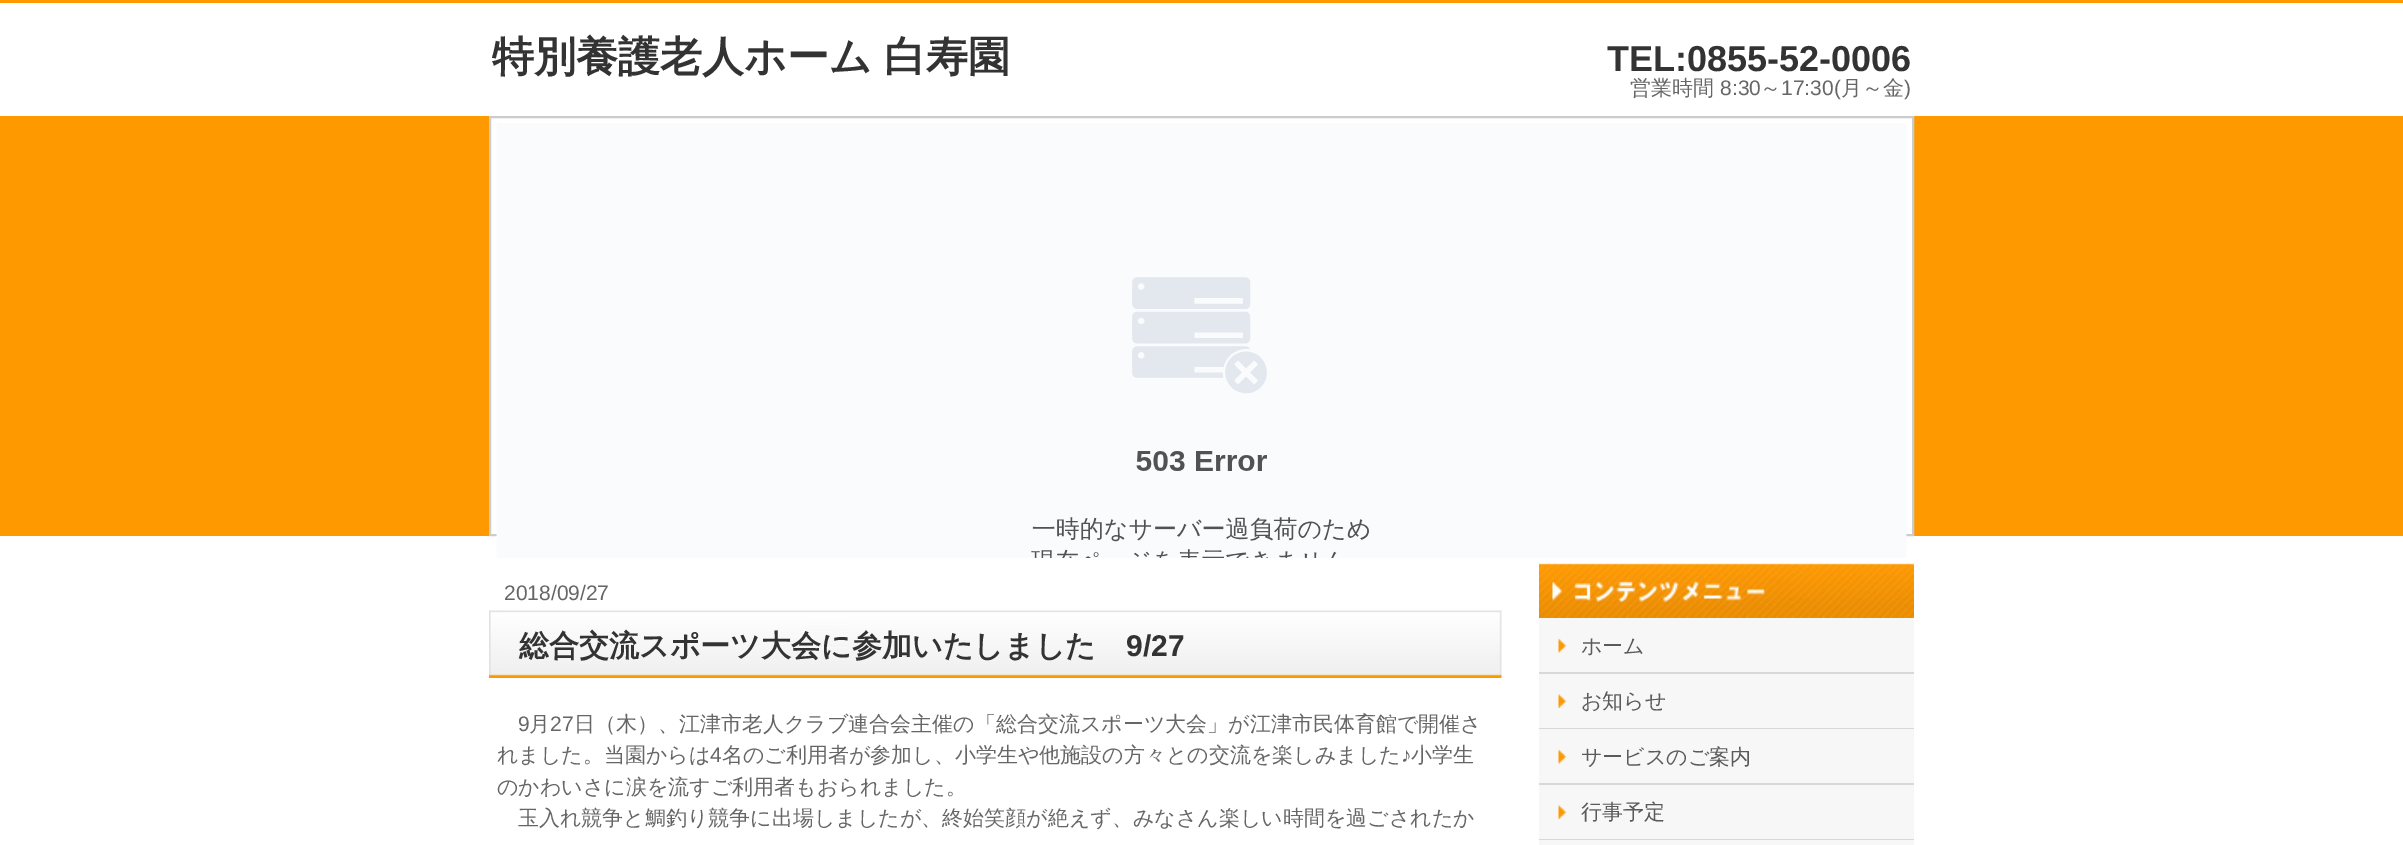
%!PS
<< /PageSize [2403 845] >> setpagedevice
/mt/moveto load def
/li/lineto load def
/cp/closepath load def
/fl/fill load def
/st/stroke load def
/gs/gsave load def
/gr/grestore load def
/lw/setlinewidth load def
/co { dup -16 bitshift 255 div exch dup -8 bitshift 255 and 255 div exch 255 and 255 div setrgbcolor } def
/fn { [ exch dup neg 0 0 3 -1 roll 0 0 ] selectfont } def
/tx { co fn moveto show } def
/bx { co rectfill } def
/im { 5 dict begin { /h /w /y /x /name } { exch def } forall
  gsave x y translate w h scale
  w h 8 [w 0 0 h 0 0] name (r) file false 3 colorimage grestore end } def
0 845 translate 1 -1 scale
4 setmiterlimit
0 0 2403 845 16#FFFFFF bx
0 0 2403 3 16#FF9900 bx
0 116 2403 420 16#FF9900 bx
16#FFFFFF co
490 117 mt 1913 117 li 1913 535 li 490 535 li cp gs fl gr
16#CCCCCC co
2 lw
st
(media/1.raw) 496 123 1411 435 im
(media/2.raw) 489 610 1013 68 im
(media/3.raw) 1539 562 375 56 im
1539 618 375 54 16#F7F7F7 bx
(media/4.raw) 1558 638 9 15 im
1539 672 375 2 16#D8D8D8 bx
1539 674 375 54 16#F7F7F7 bx
(media/5.raw) 1558 694 9 14 im
1539 728 375 1 16#D8D8D8 bx
1539 729 375 54 16#F7F7F7 bx
(media/4.raw) 1558 749 9 15 im
1539 783 375 2 16#D8D8D8 bx
1539 785 375 54 16#F7F7F7 bx
(media/5.raw) 1558 805 9 14 im
1539 839 375 1 16#D8D8D8 bx
1539 840 375 5 16#F7F7F7 bx
/WenQuanYiZenHei-Bold 42 fn
16#333333 co
492 71 mt -1 0 32 (特別養護老人ホーム 白寿園) widthshow
(TEL:0855-52-0006) 1607 71 /LiberationSans-Bold 36 16#333333 tx
(営業時間) 1630 95 /WenQuanYiZenHei-Medium 21 16#666666 tx
(8:30) 1720 95 /LiberationSans-Regular 21 16#666666 tx
(～) 1760 95 /WenQuanYiZenHei-Medium 21 16#666666 tx
(17:30\() 1781 95 /LiberationSans-Regular 21 16#666666 tx
(月～金) 1841 95 /WenQuanYiZenHei-Medium 21 16#666666 tx
(\)) 1904 95 /LiberationSans-Regular 21 16#666666 tx
(2018/09/27) 504 600 /LiberationSans-Regular 21 16#666666 tx
(総合交流スポーツ大会に参加いたしました) 519 656 /WenQuanYiZenHei-Bold 30 16#333333 tx
(9/27) 1126 656 /LiberationSans-Bold 30 16#333333 tx
(9) 518 731 /LiberationSans-Regular 21 16#666666 tx
(月) 529 731 /WenQuanYiZenHei-Medium 21 16#666666 tx
(27) 550 731 /LiberationSans-Regular 21 16#666666 tx
(日（木）、江津市老人クラブ連合会主催の「総合交流スポーツ大会」が江津市民体育館で開催さ) 574 731 /WenQuanYiZenHei-Medium 21 16#666666 tx
(れました。当園からは) 497 762 /WenQuanYiZenHei-Medium 21 16#666666 tx
(4) 710 762 /LiberationSans-Regular 21 16#666666 tx
(名のご利用者が参加し、小学生や他施設の方々との交流を楽しみました) 722 762 /WenQuanYiZenHei-Medium 21 16#666666 tx
(♪) 1401 762 /LiberationSans-Regular 21 16#666666 tx
(小学生) 1411 762 /WenQuanYiZenHei-Medium 21 16#666666 tx
(のかわいさに涙を流すご利用者もおられました。) 497 794 /WenQuanYiZenHei-Medium 21 16#666666 tx
(玉入れ競争と鯛釣り競争に出場しましたが、終始笑顔が絶えず、みなさん楽しい時間を過ごされたか) 518 825 /WenQuanYiZenHei-Medium 21 16#666666 tx
(ホーム) 1581 653 /WenQuanYiZenHei-Medium 21 16#5A5A5A tx
(お知らせ) 1581 708 /WenQuanYiZenHei-Medium 21 16#5A5A5A tx
(サービスのご案内) 1581 764 /WenQuanYiZenHei-Medium 21 16#5A5A5A tx
(行事予定) 1581 819 /WenQuanYiZenHei-Medium 21 16#5A5A5A tx
showpage
